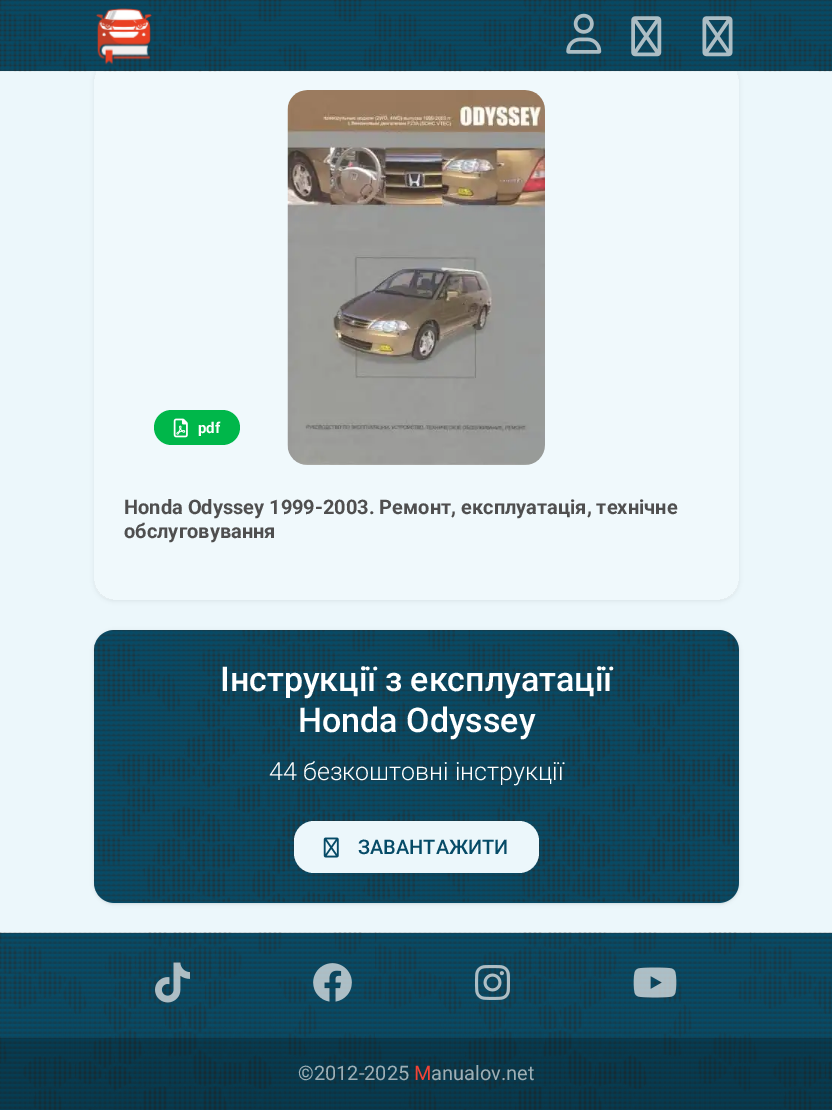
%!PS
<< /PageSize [832 1110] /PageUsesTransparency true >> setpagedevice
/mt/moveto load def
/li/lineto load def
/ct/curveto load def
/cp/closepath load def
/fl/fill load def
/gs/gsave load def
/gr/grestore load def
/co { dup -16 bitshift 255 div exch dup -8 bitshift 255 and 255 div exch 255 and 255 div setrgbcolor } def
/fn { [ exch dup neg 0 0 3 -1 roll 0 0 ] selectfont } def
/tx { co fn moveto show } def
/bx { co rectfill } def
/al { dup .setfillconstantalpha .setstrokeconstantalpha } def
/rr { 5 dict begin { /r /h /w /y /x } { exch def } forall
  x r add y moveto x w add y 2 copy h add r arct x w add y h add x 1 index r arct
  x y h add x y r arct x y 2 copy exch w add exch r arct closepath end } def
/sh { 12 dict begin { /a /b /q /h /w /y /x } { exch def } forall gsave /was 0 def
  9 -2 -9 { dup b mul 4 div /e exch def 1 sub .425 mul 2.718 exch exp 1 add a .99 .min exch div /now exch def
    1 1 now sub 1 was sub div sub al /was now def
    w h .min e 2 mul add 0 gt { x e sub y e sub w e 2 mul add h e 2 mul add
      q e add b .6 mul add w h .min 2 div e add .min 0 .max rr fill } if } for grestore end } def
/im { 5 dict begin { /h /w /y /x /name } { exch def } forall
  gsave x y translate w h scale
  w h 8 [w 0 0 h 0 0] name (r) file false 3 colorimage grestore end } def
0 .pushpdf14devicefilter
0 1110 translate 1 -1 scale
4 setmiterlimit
0 0 832 1110 16#ECF7FB bx
gs
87 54 mt 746 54 li 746 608 li 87 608 li cp 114 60 mt 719 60 li 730 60 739 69 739 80 ct 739 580 li 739 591 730 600 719 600 ct 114 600 li 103 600 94 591 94 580 ct 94 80 li 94 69 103 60 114 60 ct cp eoclip newpath
16#000000 co
94 61 645 540 20 2 .07 sh
gr
0.23 al
16#FFFFFF co
94 60 645 540 20 rr fl
1 al
0 0 832 71 16#054A66 bx
(media/1.raw) 0 0 832 72 im
(media/2.raw) 95 8 57 57 im
(media/3.raw) 566 13 36 41 im
(media/4.raw) 631 16 31 41 im
(media/5.raw) 702 16 31 41 im
16#00B74A co
154 410 86 35 17.5 rr fl
(media/6.raw) 173 418 15 20 im
(media/7.raw) 287 90 258 375 im
16#000000 co
94 631 645 273 20 1 .05 sh
94 631 645 273 20 2 .07 sh
16#064B67 co
94 630 645 273 20 rr fl
(media/8.raw) 93 630 646 273 im
16#ECF7FB co
294 821 245 52 20 rr fl
(media/9.raw) 323 837 16 21 im
0 933 832 177 16#064B67 bx
(media/10.raw) 0 932 832 178 im
(media/11.raw) 155 962 35 41 im
(media/12.raw) 313 963 39 39 im
(media/13.raw) 475 965 35 35 im
(media/14.raw) 633 967 44 31 im
0.2 al
0 1038 832 72 16#000000 bx
1 al
(pdf) 198 433 /Roboto-Bold 15 16#FFFFFF tx
(Honda Odyssey 1999-2003. Ремонт, експлуатація, технічне) 124 514 /Roboto-Bold 20 16#4F4F4F tx
(обслуговування) 124 538 /Roboto-Bold 20 16#4F4F4F tx
(Інструкції з експлуатації) 220 691 /Roboto-Medium 34 16#FFFFFF tx
(Honda Odyssey) 298 732 /Roboto-Medium 34 16#FFFFFF tx
(44 безкоштовні інструкції) 269 780 /Roboto-Light 25 16#FFFFFF tx
(ЗАВАНТАЖИТИ) 358 854 /Roboto-Medium 20 16#064B67 tx
(©2012-2025) 298 1080 /Roboto-Regular 20 16#9DAFB6 tx
(M) 414 1080 /Roboto-Regular 20 16#F44336 tx
(anualov.net) 431 1080 /Roboto-Regular 20 16#9DAFB6 tx
.poppdf14devicefilter showpage
